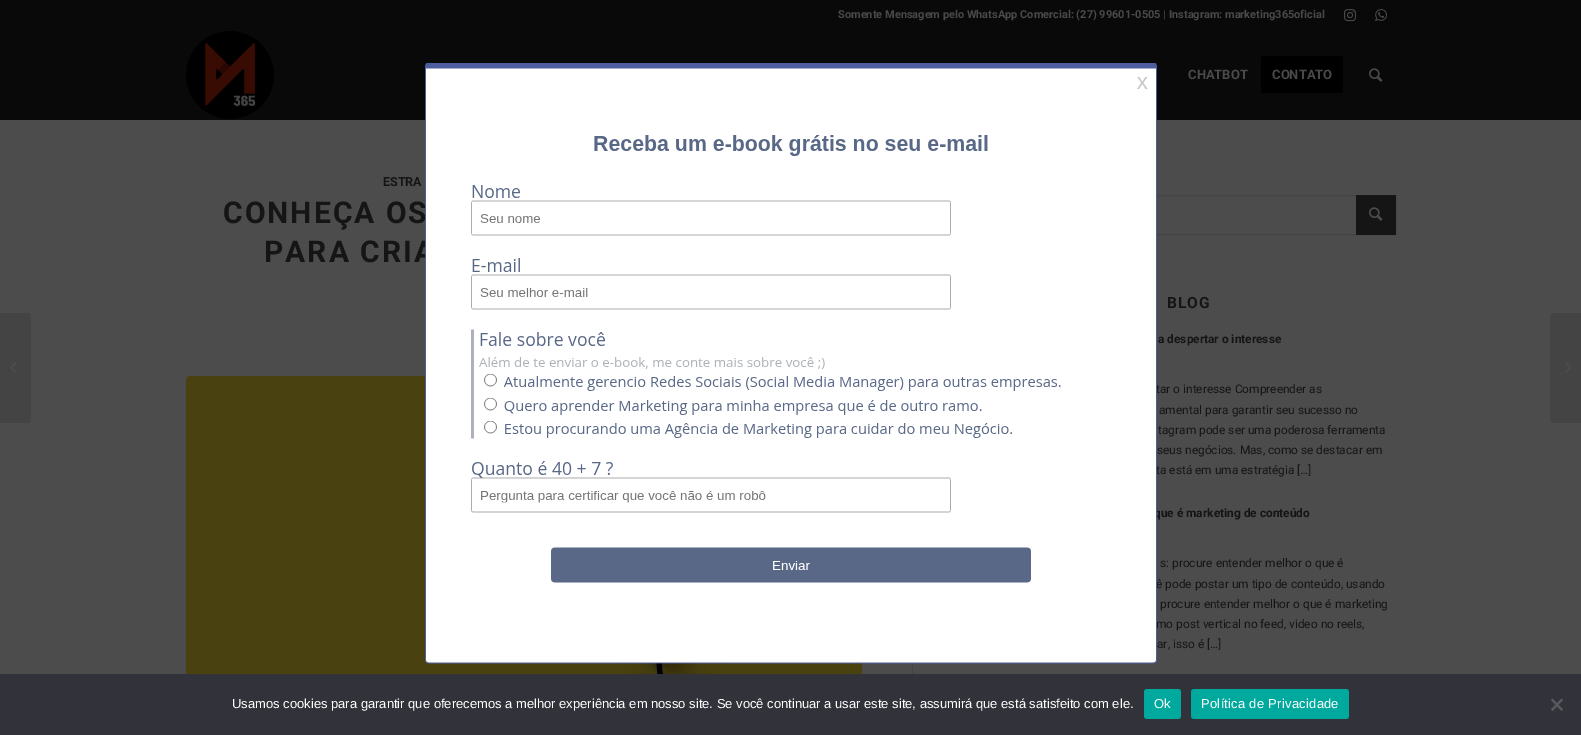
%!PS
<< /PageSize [1581 735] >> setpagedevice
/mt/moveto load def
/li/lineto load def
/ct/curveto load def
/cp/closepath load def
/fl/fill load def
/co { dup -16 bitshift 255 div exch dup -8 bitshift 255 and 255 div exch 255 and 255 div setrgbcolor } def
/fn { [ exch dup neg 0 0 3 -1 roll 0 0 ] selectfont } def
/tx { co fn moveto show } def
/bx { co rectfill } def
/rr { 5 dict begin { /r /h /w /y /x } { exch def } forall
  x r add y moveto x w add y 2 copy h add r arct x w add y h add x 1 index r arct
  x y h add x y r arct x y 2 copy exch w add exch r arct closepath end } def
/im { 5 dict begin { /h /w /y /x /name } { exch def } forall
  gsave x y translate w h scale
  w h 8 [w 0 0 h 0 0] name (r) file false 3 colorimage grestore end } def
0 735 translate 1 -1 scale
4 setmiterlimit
0 0 1581 735 16#090909 bx
(media/1.raw) 1344 9 12 13 im
(media/2.raw) 1375 9 12 13 im
(media/3.raw) 186 31 88 88 im
16#000000 co
1261 56 82 37 2 rr fl
(media/4.raw) 1369 68 14 14 im
0 120 1581 554 16#4C4C4C bx
16#444444 co
0 313 mt 27 313 li 29 313 31 315 31 317 ct 31 419 li 31 421 29 423 27 423 ct 0 423 li cp fl
(media/5.raw) 10 362 7 11 im
912 663 1 11 16#444444 bx
(media/6.raw) 186 376 676 298 im
963.5 195.5 432 39 rectstroke
1356 195 40 40 16#151515 bx
(media/7.raw) 1369 207 14 14 im
16#444444 co
1554 313 mt 1581 313 li 1581 423 li 1554 423 li 1552 423 1550 421 1550 419 ct 1550 317 li 1550 315 1552 313 1554 313 ct cp fl
(media/8.raw) 1565 362 7 11 im
0 674 1581 61 16#32323A bx
16#00A99D co
1144 689 37 30 3 rr fl
1191 689 158 30 3 rr fl
16#59595D co
1561.5 698.5 mt 1563 700 li 1552.5 711 li 1551 709.5 li cp fl
1551 700 mt 1552.5 698.5 li 1563 709.5 li 1561.5 711 li cp fl
(Somente Mensagem pelo WhatsApp Comercial: \(27\) 99601-0505 | Instagram: marketing365oficial) 838 18 /Roboto-Bold 11 16#4A4A4A tx
(CHATBOT) 1188 79 /Roboto-Bold 13 16#4A4A4A tx
(CONTATO) 1272 79 /Roboto-Bold 13 16#4A4A4A tx
(ESTRA) 383 186 /Roboto-Bold 12.5 16#151515 tx
/Roboto-Bold 30 fn
223 223 mt 2 0 (CONHEÇA OS) ashow
264 262 mt 2 0 (PARA CRIA) ashow
/Roboto-Bold 15.5 fn
1167 308 mt 1 0 (BLOG) ashow
(a despertar o interesse) 1158 343 /Roboto-Bold 11.9 16#151515 tx
(tar o interesse Compreender as) 1156 393 /Roboto-Regular 11.9 16#151515 tx
(amental para garantir seu sucesso no) 1159 414 /Roboto-Regular 11.9 16#151515 tx
(tagram pode ser uma poderosa ferramenta) 1158 434 /Roboto-Regular 11.9 16#151515 tx
(seus negócios. Mas, como se destacar em) 1157 454 /Roboto-Regular 11.9 16#151515 tx
(ta está em uma estratégia […]) 1156 474 /Roboto-Regular 11.9 16#151515 tx
(que é marketing de conteúdo) 1154 517 /Roboto-Bold 11.9 16#151515 tx
(s: procure entender melhor o que é) 1160 567 /Roboto-Regular 11.9 16#151515 tx
(ê pode postar um tipo de conteúdo, usando) 1156 588 /Roboto-Regular 11.9 16#151515 tx
(procure entender melhor o que é marketing) 1160 608 /Roboto-Regular 11.9 16#151515 tx
(mo post vertical no feed, video no reels,) 1156 628 /Roboto-Regular 11.9 16#151515 tx
(ar, isso é […]) 1157 648 /Roboto-Regular 11.9 16#151515 tx
(media/9.raw) 425 63 732 601 im
(Usamos cookies para garantir que oferecemos a melhor experiência em nosso site. Se você continuar a usar este site, assumirá que está satisfeito com ele.) 232 708 /LiberationSans-Regular 13 16#FFFFFF tx
1154 708 mt .25 0 (Ok) ashow
1201 708 mt .25 0 (Política de Privacidade) ashow
showpage
